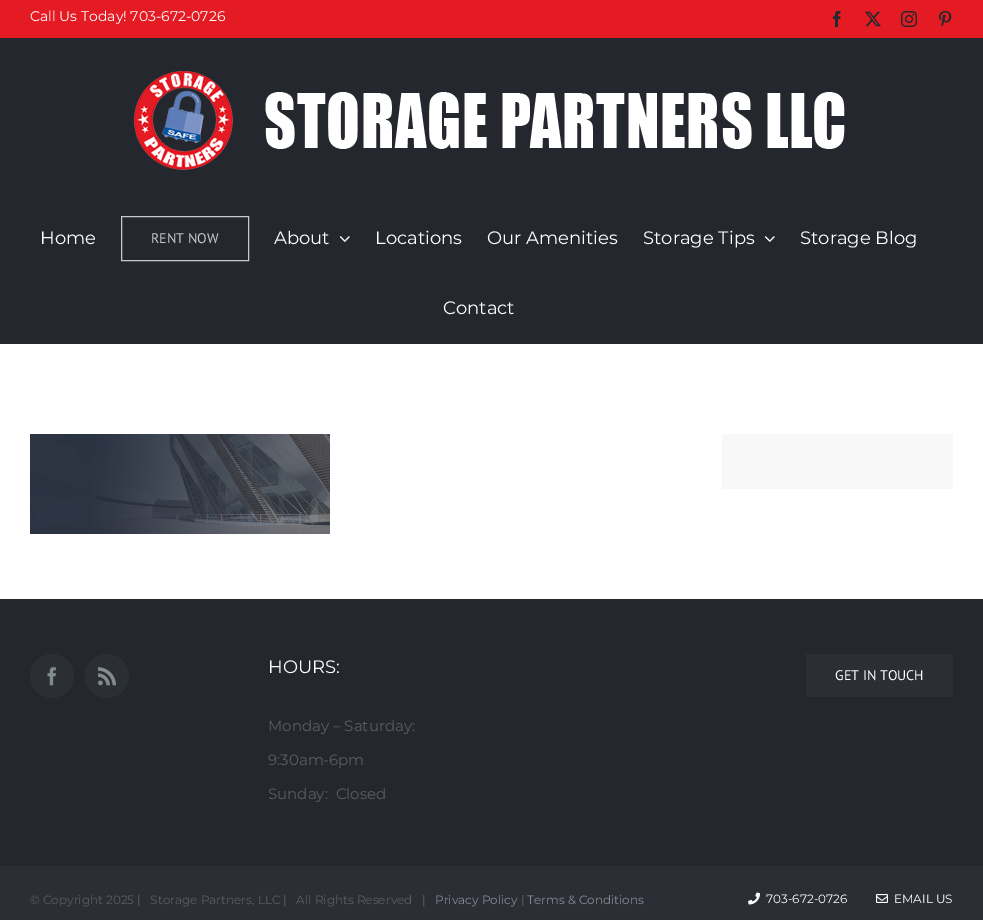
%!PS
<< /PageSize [983 920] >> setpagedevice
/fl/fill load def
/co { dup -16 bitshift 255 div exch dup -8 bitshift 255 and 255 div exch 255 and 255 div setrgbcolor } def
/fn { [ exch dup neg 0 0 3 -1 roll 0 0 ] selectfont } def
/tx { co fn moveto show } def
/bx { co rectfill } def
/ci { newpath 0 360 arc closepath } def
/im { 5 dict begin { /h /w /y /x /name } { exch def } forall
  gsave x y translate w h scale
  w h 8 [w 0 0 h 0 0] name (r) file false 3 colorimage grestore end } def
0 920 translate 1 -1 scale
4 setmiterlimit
0 0 983 920 16#FFFFFF bx
0 0 983 38 16#E51B24 bx
0 38 983 1 16#24272D bx
(media/1.raw) 833 11 8 16 im
(media/2.raw) 865 11 16 16 im
(media/3.raw) 901 11 16 16 im
(media/4.raw) 938 11 14 16 im
0 39 983 305 16#24272D bx
(media/5.raw) 134 71 711 99 im
16#C8C9CB co
121.5 216.5 127 44 rectstroke
(media/6.raw) 339 236 11 6 im
(media/6.raw) 764 236 11 6 im
(media/7.raw) 30 434 300 100 im
722 434 231 55 16#F8F8F8 bx
0 599 983 267 16#24272D bx
16#2B2E35 co
52 676 22 ci fl
(media/8.raw) 47 667 9 19 im
107 676 22 ci fl
(media/9.raw) 98 667 18 19 im
806 654 147 43 16#2B2E35 bx
0 866 983 54 16#2B2E35 bx
(media/10.raw) 748 892 12 13 im
(media/11.raw) 876 894 12 9 im
(Call Us Today! 703-672-0726) 30 21 /Montserrat-Regular 14 16#FFFFFF tx
(Home) 40 244 /Montserrat-Regular 18 16#FFFFFF tx
(RENT NOW) 151 243 /PTSans-Regular 14 16#C8C9CB tx
(About) 274 244 /Montserrat-Regular 18 16#FFFFFF tx
(Locations) 375 244 /Montserrat-Regular 18 16#FFFFFF tx
(Our Amenities) 487 244 /Montserrat-Regular 18 16#FFFFFF tx
(Storage Tips) 643 244 /Montserrat-Regular 18 16#FFFFFF tx
(Storage Blog) 800 244 /Montserrat-Regular 18 16#FFFFFF tx
(Contact) 443 314 /Montserrat-Regular 18 16#FFFFFF tx
(HOURS:) 268 673 /Montserrat-Regular 18 16#FFFFFF tx
(Monday – Saturday:) 268 731 /Montserrat-Regular 15 16#5A5D62 tx
(9:30am-6pm) 268 765 /Montserrat-Regular 15 16#5A5D62 tx
(Sunday:  Closed) 268 799 /Montserrat-Regular 15 16#5A5D62 tx
(GET IN TOUCH) 835 680 /PTSans-Regular 14 16#FFFFFF tx
(© Copyright 2025 |   Storage Partners, LLC |   All Rights Reserved   |) 30 904 /Montserrat-Regular 12 16#5A5D62 tx
(Privacy Policy) 435 904 /Montserrat-Regular 12 16#868A92 tx
(|) 521 904 /Montserrat-Regular 12 16#5A5D62 tx
(Terms & Conditions) 527 904 /Montserrat-Regular 12 16#868A92 tx
(703-672-0726) 766 903 /Montserrat-Regular 12 16#FFFFFF tx
(EMAIL US) 894 903 /Montserrat-Regular 12 16#FFFFFF tx
showpage
